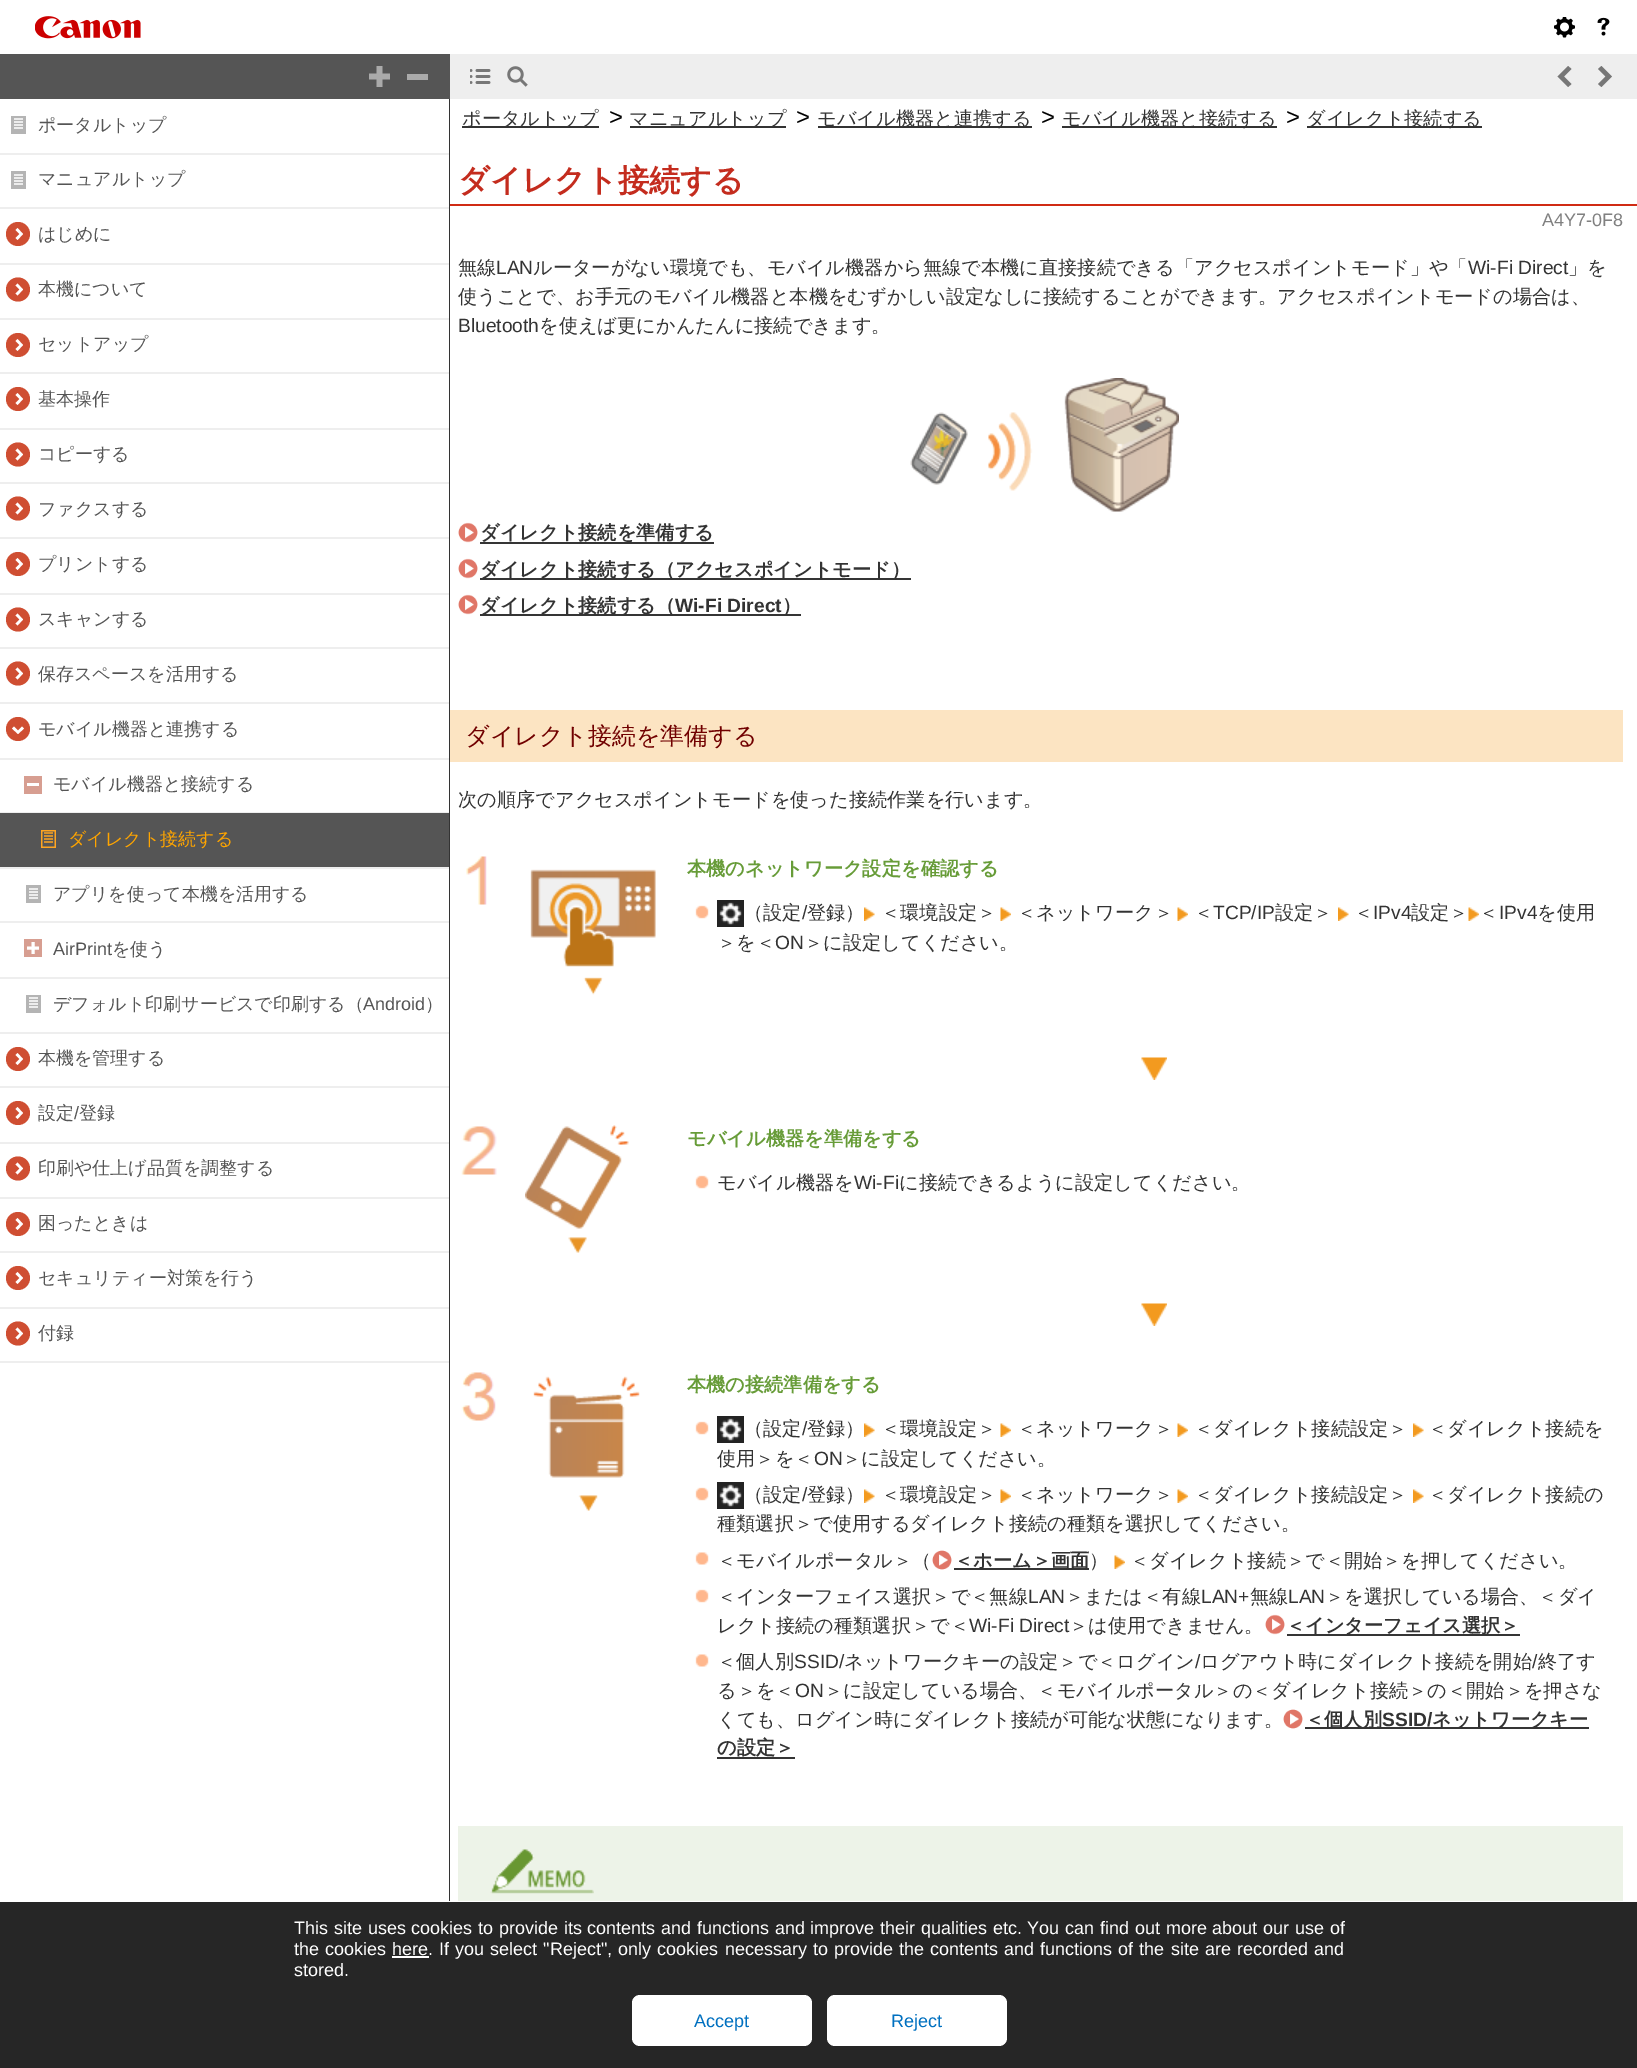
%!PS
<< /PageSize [1637 2068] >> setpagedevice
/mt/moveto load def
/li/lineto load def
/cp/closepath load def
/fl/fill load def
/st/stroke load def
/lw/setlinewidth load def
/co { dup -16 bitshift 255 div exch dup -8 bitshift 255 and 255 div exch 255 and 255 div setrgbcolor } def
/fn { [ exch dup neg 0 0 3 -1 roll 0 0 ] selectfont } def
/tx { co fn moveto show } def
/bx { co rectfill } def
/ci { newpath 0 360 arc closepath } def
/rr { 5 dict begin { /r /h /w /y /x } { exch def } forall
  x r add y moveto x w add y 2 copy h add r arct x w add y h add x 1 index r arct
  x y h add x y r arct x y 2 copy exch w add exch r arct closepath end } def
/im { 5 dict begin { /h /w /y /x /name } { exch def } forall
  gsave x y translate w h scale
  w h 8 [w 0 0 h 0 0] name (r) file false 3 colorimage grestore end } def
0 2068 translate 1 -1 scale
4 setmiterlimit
0 0 1637 2068 16#FFFFFF bx
(media/1.raw) 35 16 106 23 im
(media/2.raw) 1554 17 21 21 im
(media/3.raw) 1597 17 13 19 im
0 54 450 45 16#555555 bx
(media/4.raw) 369 66 21 21 im
407 74 21 6 16#AAAAAA bx
450 54 1187 45 16#EEEEEE bx
(media/5.raw) 470 69 21 15 im
(media/6.raw) 507 66 21 21 im
16#777777 co
1571.5 84 mt 1564 76.5 li 1571.5 69 li 1568 66 li 1557.5 76.5 li 1568 87 li cp 1598 69 mt 1605.5 76.5 li 1598 84 li 1601.5 87 li 1612 76.5 li 1601.5 66 li cp fl
449 99 1 1802 16#333333 bx
0 153 449 2 16#EEEEEE bx
(media/7.raw) 11 116 15 18 im
0 207 449 2 16#EEEEEE bx
(media/8.raw) 11 171 15 18 im
0 263 449 2 16#EEEEEE bx
16#CF4E32 co
18 234 12 ci fl
16#FFFFFF co
15.5 230 mt 19.5 234 li 15.5 238 li 17.5 240 li 23 234 li 17.5 228 li cp fl
0 318 449 2 16#EEEEEE bx
16#CF4E32 co
18 289.5 12 ci fl
16#FFFFFF co
15.5 285.5 mt 19.5 289.5 li 15.5 293.5 li 17.5 295.5 li 23 289.5 li 17.5 283.5 li cp fl
0 372 449 2 16#EEEEEE bx
16#CF4E32 co
18 345 12 ci fl
16#FFFFFF co
15.5 341 mt 19.5 345 li 15.5 349 li 17.5 351 li 23 345 li 17.5 339 li cp fl
0 428 449 2 16#EEEEEE bx
16#CF4E32 co
18 399 12 ci fl
16#FFFFFF co
15.5 395 mt 19.5 399 li 15.5 403 li 17.5 405 li 23 399 li 17.5 393 li cp fl
0 482 449 2 16#EEEEEE bx
16#CF4E32 co
18 454.5 12 ci fl
16#FFFFFF co
15.5 450.5 mt 19.5 454.5 li 15.5 458.5 li 17.5 460.5 li 23 454.5 li 17.5 448.5 li cp fl
0 537 449 2 16#EEEEEE bx
16#CF4E32 co
18 508.5 12 ci fl
16#FFFFFF co
15.5 504.5 mt 19.5 508.5 li 15.5 512.5 li 17.5 514.5 li 23 508.5 li 17.5 502.5 li cp fl
0 593 449 2 16#EEEEEE bx
16#CF4E32 co
18 564 12 ci fl
16#FFFFFF co
15.5 560 mt 19.5 564 li 15.5 568 li 17.5 570 li 23 564 li 17.5 558 li cp fl
0 647 449 2 16#EEEEEE bx
16#CF4E32 co
18 619.5 12 ci fl
16#FFFFFF co
15.5 615.5 mt 19.5 619.5 li 15.5 623.5 li 17.5 625.5 li 23 619.5 li 17.5 613.5 li cp fl
0 702 449 2 16#EEEEEE bx
16#CF4E32 co
18 673.5 12 ci fl
16#FFFFFF co
15.5 669.5 mt 19.5 673.5 li 15.5 677.5 li 17.5 679.5 li 23 673.5 li 17.5 667.5 li cp fl
0 758 449 2 16#EEEEEE bx
16#CF4E32 co
18 729 12 ci fl
16#FFFFFF co
22 726.5 mt 18 730.5 li 14 726.5 li 12 728.5 li 18 734 li 24 728.5 li cp fl
0 812 449 1 16#EEEEEE bx
24 776 18 18 16#D79E91 bx
27 783 12 3 16#FFFFFF bx
0 813 449 54 16#555555 bx
0 867 449 2 16#EEEEEE bx
(media/9.raw) 41 830 15 18 im
0 921 449 2 16#EEEEEE bx
(media/8.raw) 26 885 15 18 im
0 977 449 2 16#EEEEEE bx
24 939 18 18 16#D79E91 bx
16#FFFFFF co
3 lw
33 942 mt 33 954 li 27 948 mt 39 948 li st
0 1032 449 2 16#EEEEEE bx
(media/7.raw) 26 995 15 18 im
0 1086 449 2 16#EEEEEE bx
16#CF4E32 co
18 1059 12 ci fl
16#FFFFFF co
15.5 1055 mt 19.5 1059 li 15.5 1063 li 17.5 1065 li 23 1059 li 17.5 1053 li cp fl
0 1142 449 2 16#EEEEEE bx
16#CF4E32 co
18 1113 12 ci fl
16#FFFFFF co
15.5 1109 mt 19.5 1113 li 15.5 1117 li 17.5 1119 li 23 1113 li 17.5 1107 li cp fl
0 1197 449 2 16#EEEEEE bx
16#CF4E32 co
18 1168.5 12 ci fl
16#FFFFFF co
15.5 1164.5 mt 19.5 1168.5 li 15.5 1172.5 li 17.5 1174.5 li 23 1168.5 li 17.5 1162.5 li cp fl
0 1251 449 2 16#EEEEEE bx
16#CF4E32 co
18 1224 12 ci fl
16#FFFFFF co
15.5 1220 mt 19.5 1224 li 15.5 1228 li 17.5 1230 li 23 1224 li 17.5 1218 li cp fl
0 1307 449 2 16#EEEEEE bx
16#CF4E32 co
18 1278 12 ci fl
16#FFFFFF co
15.5 1274 mt 19.5 1278 li 15.5 1282 li 17.5 1284 li 23 1278 li 17.5 1272 li cp fl
0 1361 449 2 16#EEEEEE bx
16#CF4E32 co
18 1333.5 12 ci fl
16#FFFFFF co
15.5 1329.5 mt 19.5 1333.5 li 15.5 1337.5 li 17.5 1339.5 li 23 1333.5 li 17.5 1327.5 li cp fl
462 126 137 2 16#333333 bx
630 126 156 2 16#333333 bx
818 126 214 2 16#333333 bx
1062 126 215 2 16#333333 bx
1307 126 175 2 16#333333 bx
450 204 1187 2 16#D02B14 bx
(media/10.raw) 910 378 269 134 im
(media/11.raw) 458 522 20 21 im
480 542 234 2 16#353535 bx
(media/11.raw) 458 558 20 21 im
480 578 431 2 16#353535 bx
(media/11.raw) 458 594 20 21 im
480 614 321 2 16#353535 bx
450 710 1173 52 16#FCE4C2 bx
(media/12.raw) 466 856 21 49 im
(media/13.raw) 530 869 126 126 im
(media/14.raw) 695 905 14 14 im
(media/15.raw) 717 900 27 27 im
(media/16.raw) 864 907 11 14 im
(media/17.raw) 1000 907 11 14 im
(media/18.raw) 1177 907 11 14 im
(media/19.raw) 1338 907 11 14 im
(media/18.raw) 1468 907 11 14 im
(media/20.raw) 1141 1057 26 23 im
(media/21.raw) 461 1126 36 49 im
(media/22.raw) 525 1125 104 128 im
(media/14.raw) 695 1175 14 14 im
(media/20.raw) 1141 1303 26 23 im
(media/23.raw) 461 1372 35 49 im
(media/24.raw) 533 1376 107 135 im
(media/14.raw) 695 1421 14 14 im
(media/15.raw) 717 1416 27 27 im
(media/16.raw) 864 1423 11 14 im
(media/17.raw) 1000 1423 11 14 im
(media/18.raw) 1177 1423 11 14 im
(media/16.raw) 1413 1423 11 14 im
(media/14.raw) 695 1487 14 14 im
(media/15.raw) 717 1482 27 27 im
(media/16.raw) 864 1489 11 14 im
(media/17.raw) 1000 1489 11 14 im
(media/18.raw) 1177 1489 11 14 im
(media/16.raw) 1413 1489 11 14 im
(media/25.raw) 695 1552 14 13 im
(media/26.raw) 932 1550 20 20 im
954 1568 135 2 16#353535 bx
(media/18.raw) 1114 1555 11 14 im
(media/14.raw) 695 1589 14 14 im
(media/11.raw) 1265 1614 20 21 im
1287 1634 233 2 16#353535 bx
(media/25.raw) 695 1654 14 13 im
(media/27.raw) 1283 1709 20 20 im
1305 1727 284 2 16#353535 bx
717 1757 78 2 16#353535 bx
458 1826 1165 75 16#EDF3E8 bx
(media/28.raw) 490 1849 104 45 im
0 1902 1637 166 16#262626 bx
392 1956 37 2 16#FFFFFF bx
632 1995 180 51 8 rr fl
827 1995 180 51 8 rr fl
(ポータルトップ) 38 131 /WenQuanYiZenHei-Medium 18 16#555555 tx
(マニュアルトップ) 38 185 /WenQuanYiZenHei-Medium 18 16#555555 tx
(はじめに) 38 240 /WenQuanYiZenHei-Medium 18 16#555555 tx
(本機について) 38 295 /WenQuanYiZenHei-Medium 18 16#555555 tx
(セットアップ) 38 350 /WenQuanYiZenHei-Medium 18 16#555555 tx
(基本操作) 38 405 /WenQuanYiZenHei-Medium 18 16#555555 tx
(コピーする) 38 460 /WenQuanYiZenHei-Medium 18 16#555555 tx
(ファクスする) 38 515 /WenQuanYiZenHei-Medium 18 16#555555 tx
(プリントする) 38 570 /WenQuanYiZenHei-Medium 18 16#555555 tx
(スキャンする) 38 625 /WenQuanYiZenHei-Medium 18 16#555555 tx
(保存スペースを活用する) 38 680 /WenQuanYiZenHei-Medium 18 16#555555 tx
(モバイル機器と連携する) 38 735 /WenQuanYiZenHei-Medium 18 16#555555 tx
(モバイル機器と接続する) 53 790 /WenQuanYiZenHei-Medium 18 16#555555 tx
(ダイレクト接続する) 68 845 /WenQuanYiZenHei-Medium 18 16#FFA500 tx
(アプリを使って本機を活用する) 53 900 /WenQuanYiZenHei-Medium 18 16#555555 tx
(AirPrint) 53 955 /LiberationSans-Regular 18 16#555555 tx
(を使う) 112 955 /WenQuanYiZenHei-Medium 18 16#555555 tx
(デフォルト印刷サービスで印刷する（) 53 1010 /WenQuanYiZenHei-Medium 18 16#555555 tx
(Android) 363 1010 /LiberationSans-Regular 18 16#555555 tx
(）) 425 1010 /WenQuanYiZenHei-Medium 18 16#555555 tx
(本機を管理する) 38 1064 /WenQuanYiZenHei-Medium 18 16#555555 tx
(設定) 38 1119 /WenQuanYiZenHei-Medium 18 16#555555 tx
(/) 74 1119 /LiberationSans-Regular 18 16#555555 tx
(登録) 79 1119 /WenQuanYiZenHei-Medium 18 16#555555 tx
(印刷や仕上げ品質を調整する) 38 1174 /WenQuanYiZenHei-Medium 18 16#555555 tx
(困ったときは) 38 1229 /WenQuanYiZenHei-Medium 18 16#555555 tx
(セキュリティー対策を行う) 38 1284 /WenQuanYiZenHei-Medium 18 16#555555 tx
(付録) 38 1339 /WenQuanYiZenHei-Medium 18 16#555555 tx
(ポータルトップ) 462 125 /WenQuanYiZenHei-Medium 19.2 16#333333 tx
(>) 609 125 /LiberationSans-Regular 24 16#000000 tx
(マニュアルトップ) 629 125 /WenQuanYiZenHei-Medium 19.2 16#333333 tx
(>) 796 125 /LiberationSans-Regular 24 16#000000 tx
(モバイル機器と連携する) 817 125 /WenQuanYiZenHei-Medium 19.2 16#333333 tx
(>) 1041 125 /LiberationSans-Regular 24 16#000000 tx
(モバイル機器と接続する) 1062 125 /WenQuanYiZenHei-Medium 19.2 16#333333 tx
(>) 1286 125 /LiberationSans-Regular 24 16#000000 tx
(ダイレクト接続する) 1306 125 /WenQuanYiZenHei-Medium 19.2 16#333333 tx
(ダイレクト接続する) 458 191 /WenQuanYiZenHei-Bold 31.25 16#C42C1E tx
(A4Y7-0F8) 1542 226 /LiberationSans-Regular 18 16#808080 tx
(無線) 458 274 /WenQuanYiZenHei-Medium 19.2 16#333333 tx
(LAN) 496 274 /LiberationSans-Regular 19.2 16#333333 tx
(ルーターがない環境でも、モバイル機器から無線で本機に直接接続できる「アクセスポイントモード」や「) 533 274 /WenQuanYiZenHei-Medium 19.2 16#333333 tx
(Wi-Fi Direct) 1468 274 /LiberationSans-Regular 19.2 16#333333 tx
(」を) 1568 274 /WenQuanYiZenHei-Medium 19.2 16#333333 tx
(使うことで、お手元のモバイル機器と本機をむずかしい設定なしに接続することができます。アクセスポイントモードの場合は、) 458 303 /WenQuanYiZenHei-Medium 19.2 16#333333 tx
(Bluetooth) 458 332 /LiberationSans-Regular 19.2 16#333333 tx
(を使えば更にかんたんに接続できます。) 539 332 /WenQuanYiZenHei-Medium 19.2 16#333333 tx
(ダイレクト接続を準備する) 480 539 /WenQuanYiZenHei-Bold 19.2 16#333333 tx
(ダイレクト接続する（アクセスポイントモード）) 480 576 /WenQuanYiZenHei-Bold 19.2 16#333333 tx
(ダイレクト接続する（) 480 612 /WenQuanYiZenHei-Bold 19.2 16#333333 tx
(Wi-Fi Direct) 675 612 /LiberationSans-Bold 19.2 16#333333 tx
(）) 782 612 /WenQuanYiZenHei-Bold 19.2 16#333333 tx
(ダイレクト接続を準備する) 465 744 /WenQuanYiZenHei-Medium 24 16#710000 tx
(次の順序でアクセスポイントモードを使った接続作業を行います。) 458 806 /WenQuanYiZenHei-Medium 19.2 16#333333 tx
(本機のネットワーク設定を確認する) 687 875 /WenQuanYiZenHei-Bold 19.2 16#679C38 tx
(（設定) 744 919 /WenQuanYiZenHei-Medium 19.2 16#333333 tx
(/) 802 919 /LiberationSans-Regular 19.2 16#333333 tx
(登録）) 807 919 /WenQuanYiZenHei-Medium 19.2 16#333333 tx
(＜環境設定＞) 881 919 /WenQuanYiZenHei-Medium 19.2 16#333333 tx
(＜ネットワーク＞) 1017 919 /WenQuanYiZenHei-Medium 19.2 16#333333 tx
(＜) 1194 919 /WenQuanYiZenHei-Medium 19.2 16#333333 tx
(TCP/IP) 1213 919 /LiberationSans-Regular 19.2 16#333333 tx
(設定＞) 1275 919 /WenQuanYiZenHei-Medium 19.2 16#333333 tx
(＜) 1354 919 /WenQuanYiZenHei-Medium 19.2 16#333333 tx
(IPv4) 1373 919 /LiberationSans-Regular 19.2 16#333333 tx
(設定＞) 1411 919 /WenQuanYiZenHei-Medium 19.2 16#333333 tx
(＜) 1479 919 /WenQuanYiZenHei-Medium 19.2 16#333333 tx
(IPv4) 1499 919 /LiberationSans-Regular 19.2 16#333333 tx
(を使用) 1537 919 /WenQuanYiZenHei-Medium 19.2 16#333333 tx
(＞を＜) 717 949 /WenQuanYiZenHei-Medium 19.2 16#333333 tx
(ON) 775 949 /LiberationSans-Regular 19.2 16#333333 tx
(＞に設定してください。) 804 949 /WenQuanYiZenHei-Medium 19.2 16#333333 tx
(モバイル機器を準備をする) 687 1145 /WenQuanYiZenHei-Bold 19.2 16#679C38 tx
(モバイル機器を) 717 1189 /WenQuanYiZenHei-Medium 19.2 16#333333 tx
(Wi-Fi) 854 1189 /LiberationSans-Regular 19.2 16#333333 tx
(に接続できるように設定してください。) 899 1189 /WenQuanYiZenHei-Medium 19.2 16#333333 tx
(本機の接続準備をする) 687 1391 /WenQuanYiZenHei-Bold 19.2 16#679C38 tx
(（設定) 744 1435 /WenQuanYiZenHei-Medium 19.2 16#333333 tx
(/) 802 1435 /LiberationSans-Regular 19.2 16#333333 tx
(登録）) 807 1435 /WenQuanYiZenHei-Medium 19.2 16#333333 tx
(＜環境設定＞) 881 1435 /WenQuanYiZenHei-Medium 19.2 16#333333 tx
(＜ネットワーク＞) 1017 1435 /WenQuanYiZenHei-Medium 19.2 16#333333 tx
(＜ダイレクト接続設定＞) 1194 1435 /WenQuanYiZenHei-Medium 19.2 16#333333 tx
(＜ダイレクト接続を) 1428 1435 /WenQuanYiZenHei-Medium 19.2 16#333333 tx
(使用＞を＜) 717 1465 /WenQuanYiZenHei-Medium 19.2 16#333333 tx
(ON) 814 1465 /LiberationSans-Regular 19.2 16#333333 tx
(＞に設定してください。) 842 1465 /WenQuanYiZenHei-Medium 19.2 16#333333 tx
(（設定) 744 1501 /WenQuanYiZenHei-Medium 19.2 16#333333 tx
(/) 802 1501 /LiberationSans-Regular 19.2 16#333333 tx
(登録）) 807 1501 /WenQuanYiZenHei-Medium 19.2 16#333333 tx
(＜環境設定＞) 881 1501 /WenQuanYiZenHei-Medium 19.2 16#333333 tx
(＜ネットワーク＞) 1017 1501 /WenQuanYiZenHei-Medium 19.2 16#333333 tx
(＜ダイレクト接続設定＞) 1194 1501 /WenQuanYiZenHei-Medium 19.2 16#333333 tx
(＜ダイレクト接続の) 1428 1501 /WenQuanYiZenHei-Medium 19.2 16#333333 tx
(種類選択＞で使用するダイレクト接続の種類を選択してください。) 717 1530 /WenQuanYiZenHei-Medium 19.2 16#333333 tx
(＜モバイルポータル＞（) 717 1567 /WenQuanYiZenHei-Medium 19.2 16#333333 tx
(＜ホーム＞画面) 954 1567 /WenQuanYiZenHei-Bold 19.2 16#333333 tx
(）) 1089 1567 /WenQuanYiZenHei-Medium 19.2 16#333333 tx
(＜ダイレクト接続＞で＜開始＞を押してください。) 1130 1567 /WenQuanYiZenHei-Medium 19.2 16#333333 tx
(＜インターフェイス選択＞で＜無線) 717 1603 /WenQuanYiZenHei-Medium 19.2 16#333333 tx
(LAN) 1028 1603 /LiberationSans-Regular 19.2 16#333333 tx
(＞または＜有線) 1065 1603 /WenQuanYiZenHei-Medium 19.2 16#333333 tx
(LAN+) 1201 1603 /LiberationSans-Regular 19.2 16#333333 tx
(無線) 1250 1603 /WenQuanYiZenHei-Medium 19.2 16#333333 tx
(LAN) 1288 1603 /LiberationSans-Regular 19.2 16#333333 tx
(＞を選択している場合、＜ダイ) 1325 1603 /WenQuanYiZenHei-Medium 19.2 16#333333 tx
(レクト接続の種類選択＞で＜) 717 1632 /WenQuanYiZenHei-Medium 19.2 16#333333 tx
(Wi-Fi Direct) 969 1632 /LiberationSans-Regular 19.2 16#333333 tx
(＞は使用できません。) 1069 1632 /WenQuanYiZenHei-Medium 19.2 16#333333 tx
(＜インターフェイス選択＞) 1286 1632 /WenQuanYiZenHei-Bold 19.2 16#333333 tx
(＜個人別) 717 1668 /WenQuanYiZenHei-Medium 19.2 16#333333 tx
(SSID/) 794 1668 /LiberationSans-Regular 19.2 16#333333 tx
(ネットワークキーの設定＞で＜ログイン) 844 1668 /WenQuanYiZenHei-Medium 19.2 16#333333 tx
(/) 1195 1668 /LiberationSans-Regular 19.2 16#333333 tx
(ログアウト時にダイレクト接続を開始) 1200 1668 /WenQuanYiZenHei-Medium 19.2 16#333333 tx
(/) 1532 1668 /LiberationSans-Regular 19.2 16#333333 tx
(終了す) 1538 1668 /WenQuanYiZenHei-Medium 19.2 16#333333 tx
(る＞を＜) 717 1697 /WenQuanYiZenHei-Medium 19.2 16#333333 tx
(ON) 795 1697 /LiberationSans-Regular 19.2 16#333333 tx
(＞に設定している場合、＜モバイルポータル＞の＜ダイレクト接続＞の＜開始＞を押さな) 824 1697 /WenQuanYiZenHei-Medium 19.2 16#333333 tx
(くても、ログイン時にダイレクト接続が可能な状態になります。) 717 1726 /WenQuanYiZenHei-Medium 19.2 16#333333 tx
(＜個人別) 1305 1726 /WenQuanYiZenHei-Bold 19.2 16#333333 tx
(SSID/) 1382 1726 /LiberationSans-Bold 19.2 16#333333 tx
(ネットワークキー) 1432 1726 /WenQuanYiZenHei-Bold 19.2 16#333333 tx
(の設定＞) 717 1754 /WenQuanYiZenHei-Bold 19.2 16#333333 tx
/LiberationSans-Regular 18 fn
16#FFFFFF co
294 1934 mt .75 0 32 (This site uses cookies to provide its contents and functions and improve their qualities etc. You can find out more about our use of) widthshow
294 1955 mt 1 0 32 (the cookies) widthshow
(here) 392 1955 /LiberationSans-Regular 18 16#FFFFFF tx
428 1955 mt 1.1 0 32 (. If you select "Reject", only cookies necessary to provide the contents and functions of the site are recorded and) widthshow
(stored.) 294 1976 /LiberationSans-Regular 18 16#FFFFFF tx
(Accept) 694 2027 /LiberationSans-Regular 18 16#0070C0 tx
(Reject) 891 2027 /LiberationSans-Regular 18 16#0070C0 tx
showpage
